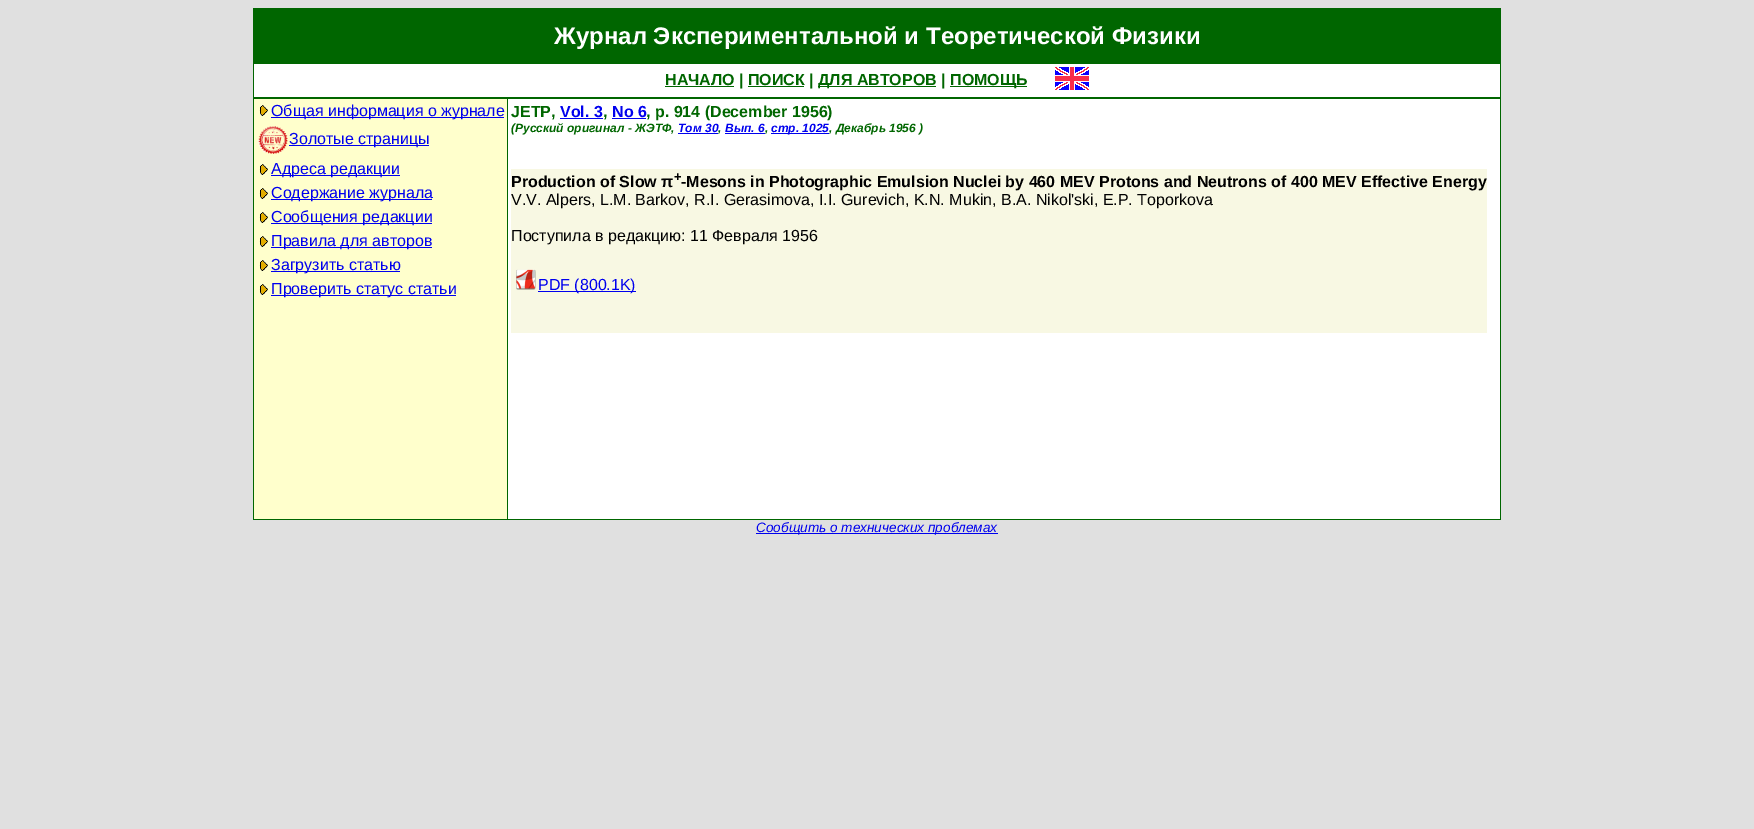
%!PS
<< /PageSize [1754 829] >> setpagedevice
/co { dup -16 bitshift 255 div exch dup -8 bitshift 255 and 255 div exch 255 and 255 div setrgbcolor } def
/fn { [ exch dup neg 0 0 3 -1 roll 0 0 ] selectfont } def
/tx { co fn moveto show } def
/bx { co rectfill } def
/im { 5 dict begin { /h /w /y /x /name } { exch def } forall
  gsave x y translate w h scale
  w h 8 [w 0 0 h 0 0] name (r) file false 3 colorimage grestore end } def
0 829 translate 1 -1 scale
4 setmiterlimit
0 0 1754 829 16#E0E0E0 bx
253 8 1248 512 16#006600 bx
254 64 1246 455 16#FFFFFF bx
665 86 69 1 16#006600 bx
818 86 118 1 16#006600 bx
950 86 77 1 16#006600 bx
748 86 56 1 16#006600 bx
(media/1.raw) 1055 67 34 23 im
254 97 1246 2 16#006600 bx
254 99 253 420 16#FFFFCC bx
(media/2.raw) 259 105 9 11 im
271 117 233 1 16#0000EE bx
(media/3.raw) 257 126 31 28 im
289 145 140 1 16#0000EE bx
(media/2.raw) 259 164 9 11 im
271 175 129 1 16#0000EE bx
(media/2.raw) 259 188 9 11 im
271 199 161 1 16#0000EE bx
(media/2.raw) 259 212 9 11 im
271 223 161 1 16#0000EE bx
(media/2.raw) 259 236 9 11 im
271 247 161 1 16#0000EE bx
(media/2.raw) 259 260 9 11 im
271 271 129 1 16#0000EE bx
(media/2.raw) 259 284 9 11 im
271 295 185 1 16#0000EE bx
507 99 1 420 16#006600 bx
560 118 43 1 16#0000EE bx
612 118 34 1 16#0000EE bx
678 133 40 1 16#0000EE bx
725 133 40 1 16#0000EE bx
771 133 58 1 16#0000EE bx
511 169 976 164 16#F8F8E3 bx
(media/4.raw) 516 269 20 21 im
538 291 98 1 16#0000EE bx
756 533 242 1 16#0000EE bx
(Журнал Экспериментальной и Теоретической Физики) 554 44 /LiberationSans-Bold 24 16#FFFFFF tx
(НАЧАЛО | ПОИСК |) 665 85 /LiberationSans-Bold 16 16#006600 tx
(ДЛЯ АВТОРОВ |) 818 85 /LiberationSans-Bold 16 16#006600 tx
(ПОМОЩЬ) 950 85 /LiberationSans-Bold 16 16#006600 tx
(Общая информация о журнале) 271 116 /LiberationSans-Regular 16 16#0000EE tx
(Золотые страницы) 289 144 /LiberationSans-Regular 16 16#0000EE tx
(Адреса редакции) 271 174 /LiberationSans-Regular 16 16#0000EE tx
(Содержание журнала) 271 198 /LiberationSans-Regular 16 16#0000EE tx
(Сообщения редакции) 271 222 /LiberationSans-Regular 16 16#0000EE tx
(Правила для авторов) 271 246 /LiberationSans-Regular 16 16#0000EE tx
(Загрузить статью) 271 270 /LiberationSans-Regular 16 16#0000EE tx
(Проверить статус статьи) 271 294 /LiberationSans-Regular 16 16#0000EE tx
(JETP,) 511 117 /LiberationSans-Bold 16 16#006600 tx
(Vol. 3) 560 117 /LiberationSans-Bold 16 16#0000EE tx
(,) 603 117 /LiberationSans-Bold 16 16#006600 tx
(No 6) 612 117 /LiberationSans-Bold 16 16#0000EE tx
(, p. 914 \(December 1956\)) 646 117 /LiberationSans-Bold 16 16#006600 tx
(\(Русский оригинал - ЖЭТФ,) 511 132 /LiberationSans-BoldItalic 12 16#006600 tx
(Том 30) 678 132 /LiberationSans-BoldItalic 12 16#0000EE tx
(,) 718 132 /LiberationSans-BoldItalic 12 16#006600 tx
(Вып. 6) 725 132 /LiberationSans-BoldItalic 12 16#0000EE tx
(,) 765 132 /LiberationSans-BoldItalic 12 16#006600 tx
(стр. 1025) 771 132 /LiberationSans-BoldItalic 12 16#0000EE tx
(, Декабрь 1956 \)) 829 132 /LiberationSans-BoldItalic 12 16#006600 tx
(Production of Slow π) 511 187 /LiberationSans-Bold 16 16#000000 tx
(+) 674 181 /LiberationSans-Bold 13 16#000000 tx
(-Mesons in Photographic Emulsion Nuclei by 460 MEV Protons and Neutrons of 400 MEV Effective Energy) 681 187 /LiberationSans-Bold 16 16#000000 tx
(V.V. Alpers, L.M. Barkov, R.I. Gerasimova, I.I. Gurevich, K.N. Mukin, B.A. Nikol'ski, E.P. Toporkova) 511 205 /LiberationSans-Regular 16 16#000000 tx
(Поступила в редакцию: 11 Февраля 1956) 511 241 /LiberationSans-Regular 16 16#000000 tx
(PDF \(800.1K\)) 538 290 /LiberationSans-Regular 16 16#0000EE tx
(Сообщить о технических проблемах) 756 532 /LiberationSans-Italic 13.6 16#0000EE tx
showpage
